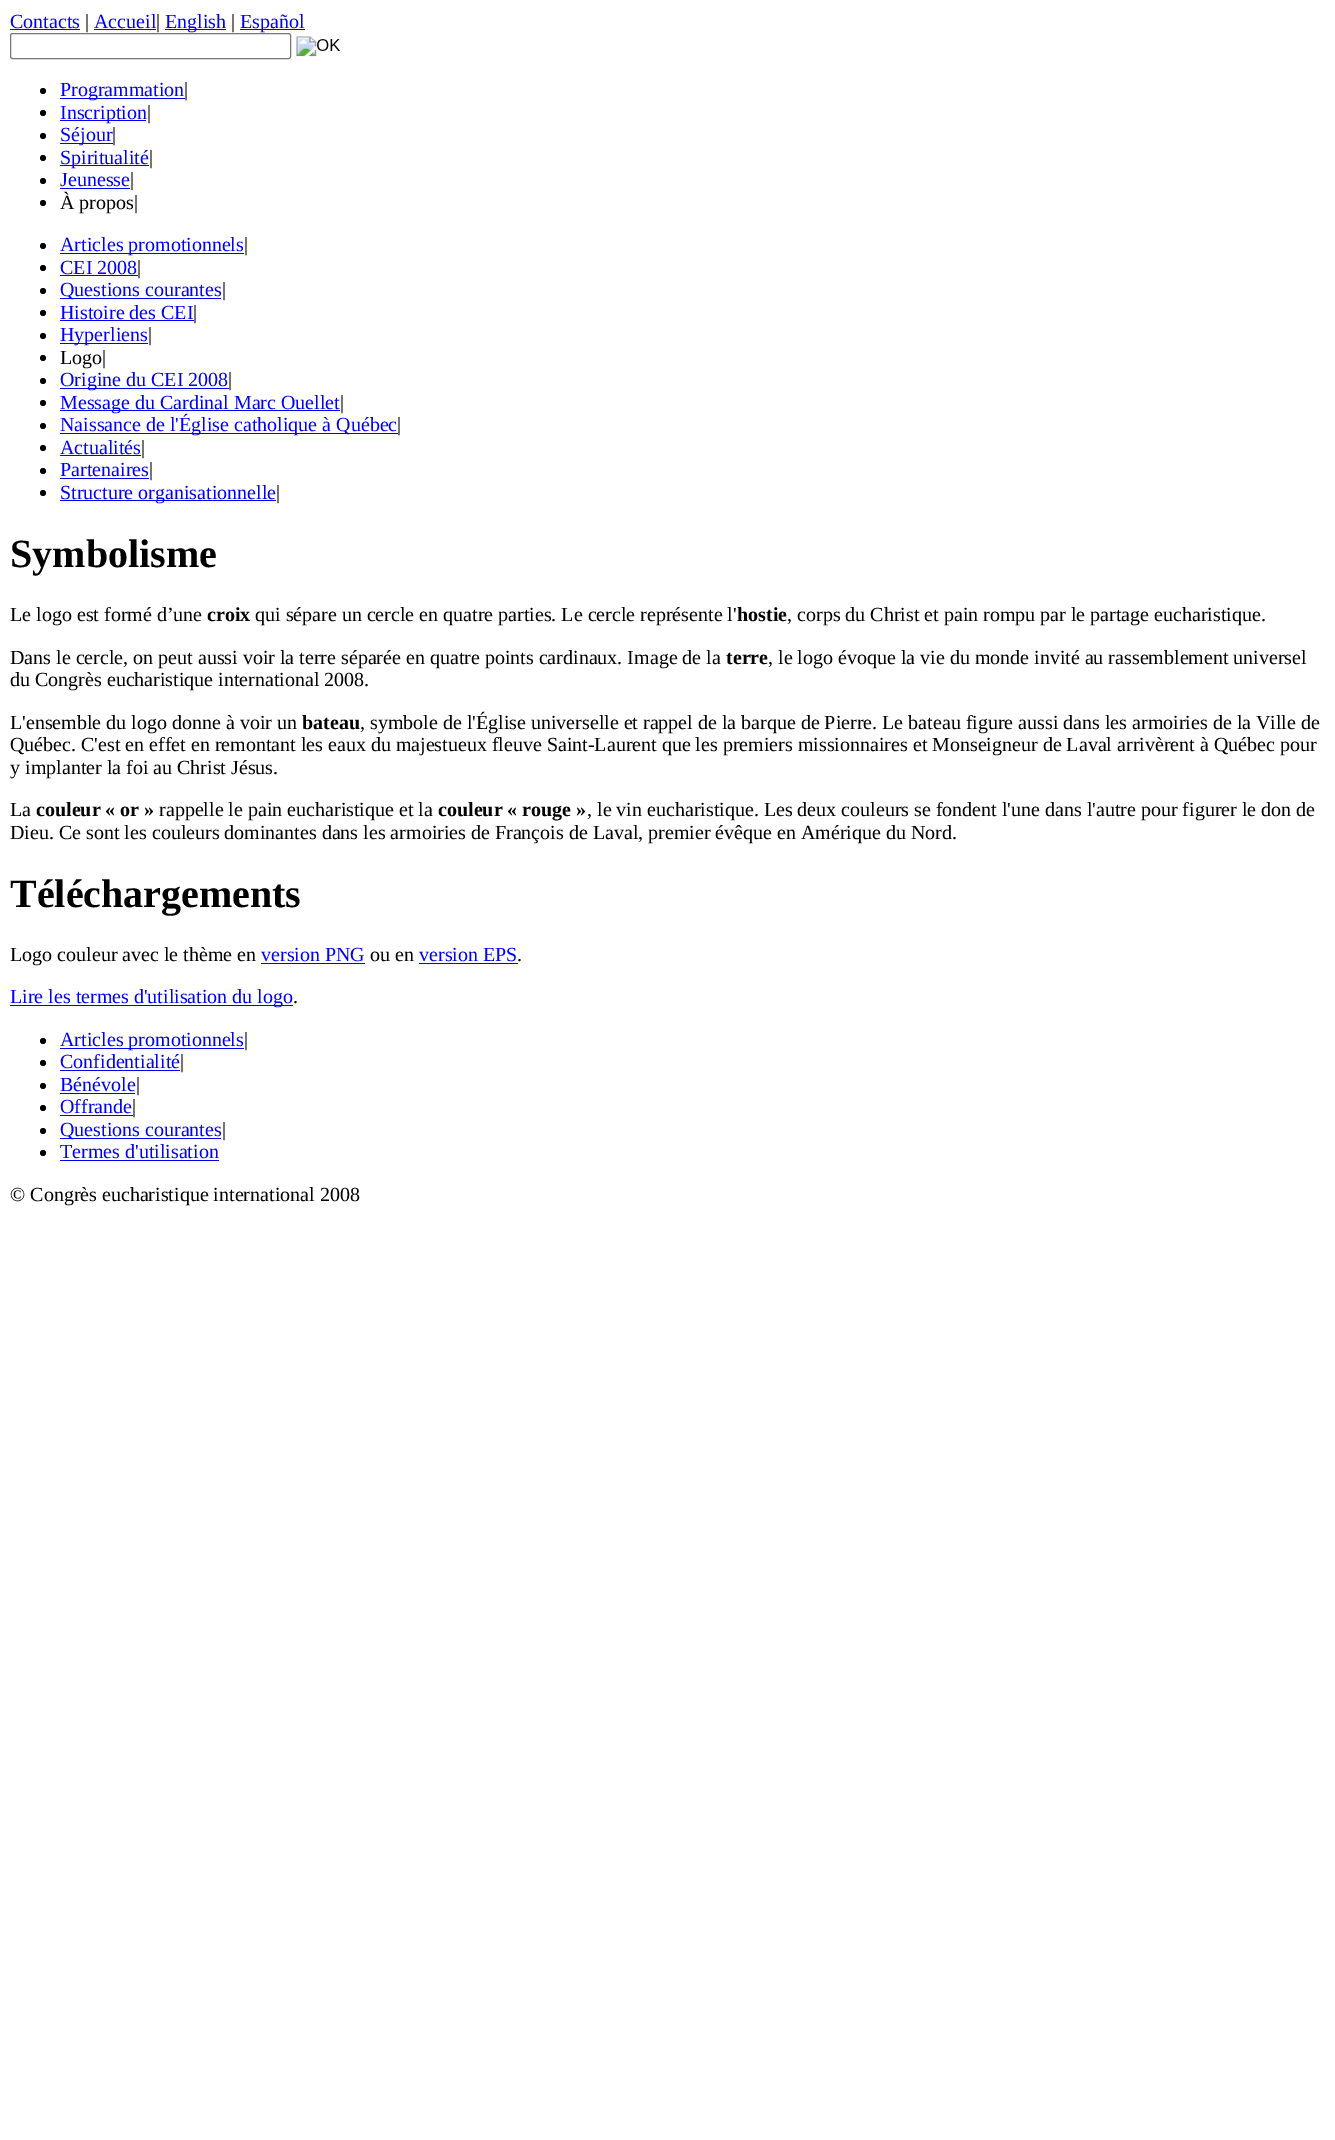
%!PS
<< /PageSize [1335 2140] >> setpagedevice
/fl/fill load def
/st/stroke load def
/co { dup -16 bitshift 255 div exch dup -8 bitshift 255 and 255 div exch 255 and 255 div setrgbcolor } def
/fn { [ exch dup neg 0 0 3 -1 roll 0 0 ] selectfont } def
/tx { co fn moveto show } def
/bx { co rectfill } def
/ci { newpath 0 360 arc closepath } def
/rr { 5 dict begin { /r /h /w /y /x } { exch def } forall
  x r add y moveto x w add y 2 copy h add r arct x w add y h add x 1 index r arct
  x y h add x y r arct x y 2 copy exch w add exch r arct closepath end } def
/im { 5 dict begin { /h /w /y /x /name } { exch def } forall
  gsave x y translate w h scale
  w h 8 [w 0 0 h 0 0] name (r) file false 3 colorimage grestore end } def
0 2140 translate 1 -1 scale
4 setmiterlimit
0 0 1335 2140 16#FFFFFF bx
10 29 70 1 16#0000EE bx
94 29 62 1 16#0000EE bx
165 29 61 1 16#0000EE bx
240 29 65 1 16#0000EE bx
16#767676 co
10.5 33.5 280 25 2 rr st
(media/1.raw) 296 36 44 21 im
16#000000 co
43 91 3 ci fl
60 98 125 1 16#0000EE bx
16#000000 co
43 113 3 ci fl
60 120 86 1 16#0000EE bx
16#000000 co
43 136 3 ci fl
60 143 53 1 16#0000EE bx
16#000000 co
43 158 3 ci fl
60 165 89 1 16#0000EE bx
16#000000 co
43 181 3 ci fl
60 188 70 1 16#0000EE bx
16#000000 co
43 203 3 ci fl
43 246 3 ci fl
60 253 184 1 16#0000EE bx
16#000000 co
43 268 3 ci fl
60 275 78 1 16#0000EE bx
16#000000 co
43 291 3 ci fl
60 298 161 1 16#0000EE bx
16#000000 co
43 313 3 ci fl
60 320 134 1 16#0000EE bx
16#000000 co
43 336 3 ci fl
60 343 88 1 16#0000EE bx
16#000000 co
43 358 3 ci fl
43 381 3 ci fl
60 388 169 1 16#0000EE bx
16#000000 co
43 403 3 ci fl
60 410 280 1 16#0000EE bx
16#000000 co
43 426 3 ci fl
60 433 338 1 16#0000EE bx
16#000000 co
43 448 3 ci fl
60 455 81 1 16#0000EE bx
16#000000 co
43 471 3 ci fl
60 478 89 1 16#0000EE bx
16#000000 co
43 493 3 ci fl
60 500 216 1 16#0000EE bx
261 963 104 1 16#0000EE bx
419 963 99 1 16#0000EE bx
10 1005 283 1 16#0000EE bx
16#000000 co
43 1041 3 ci fl
60 1048 184 1 16#0000EE bx
16#000000 co
43 1063 3 ci fl
60 1070 120 1 16#0000EE bx
16#000000 co
43 1086 3 ci fl
60 1093 75 1 16#0000EE bx
16#000000 co
43 1108 3 ci fl
60 1115 73 1 16#0000EE bx
16#000000 co
43 1131 3 ci fl
60 1138 161 1 16#0000EE bx
16#000000 co
43 1153 3 ci fl
60 1160 159 1 16#0000EE bx
(Contacts) 10 28 /LiberationSerif-Regular 20 16#0000EE tx
(|) 85 28 /LiberationSerif-Regular 20 16#000000 tx
(Accueil) 94 28 /LiberationSerif-Regular 20 16#0000EE tx
(|) 156 28 /LiberationSerif-Regular 20 16#000000 tx
(English) 165 28 /LiberationSerif-Regular 20 16#0000EE tx
(|) 231 28 /LiberationSerif-Regular 20 16#000000 tx
(Español) 240 28 /LiberationSerif-Regular 20 16#0000EE tx
(Programmation) 60 96 /LiberationSerif-Regular 20 16#0000EE tx
(|) 184 96 /LiberationSerif-Regular 20 16#000000 tx
(Inscription) 60 119 /LiberationSerif-Regular 20 16#0000EE tx
(|) 147 119 /LiberationSerif-Regular 20 16#000000 tx
(Séjour) 60 141 /LiberationSerif-Regular 20 16#0000EE tx
(|) 112 141 /LiberationSerif-Regular 20 16#000000 tx
(Spiritualité) 60 164 /LiberationSerif-Regular 20 16#0000EE tx
(|) 149 164 /LiberationSerif-Regular 20 16#000000 tx
(Jeunesse) 60 186 /LiberationSerif-Regular 20 16#0000EE tx
(|) 130 186 /LiberationSerif-Regular 20 16#000000 tx
(À propos|) 60 209 /LiberationSerif-Regular 20 16#000000 tx
(Articles promotionnels) 60 251 /LiberationSerif-Regular 20 16#0000EE tx
(|) 244 251 /LiberationSerif-Regular 20 16#000000 tx
(CEI 2008) 60 274 /LiberationSerif-Regular 20 16#0000EE tx
(|) 137 274 /LiberationSerif-Regular 20 16#000000 tx
(Questions courantes) 60 296 /LiberationSerif-Regular 20 16#0000EE tx
(|) 222 296 /LiberationSerif-Regular 20 16#000000 tx
(Histoire des CEI) 60 319 /LiberationSerif-Regular 20 16#0000EE tx
(|) 193 319 /LiberationSerif-Regular 20 16#000000 tx
(Hyperliens) 60 341 /LiberationSerif-Regular 20 16#0000EE tx
(|) 148 341 /LiberationSerif-Regular 20 16#000000 tx
(Logo|) 60 364 /LiberationSerif-Regular 20 16#000000 tx
(Origine du CEI 2008) 60 386 /LiberationSerif-Regular 20 16#0000EE tx
(|) 228 386 /LiberationSerif-Regular 20 16#000000 tx
(Message du Cardinal Marc Ouellet) 60 409 /LiberationSerif-Regular 20 16#0000EE tx
(|) 340 409 /LiberationSerif-Regular 20 16#000000 tx
(Naissance de l'Église catholique à Québec) 60 431 /LiberationSerif-Regular 20 16#0000EE tx
(|) 397 431 /LiberationSerif-Regular 20 16#000000 tx
(Actualités) 60 454 /LiberationSerif-Regular 20 16#0000EE tx
(|) 141 454 /LiberationSerif-Regular 20 16#000000 tx
(Partenaires) 60 476 /LiberationSerif-Regular 20 16#0000EE tx
(|) 149 476 /LiberationSerif-Regular 20 16#000000 tx
(Structure organisationnelle) 60 499 /LiberationSerif-Regular 20 16#0000EE tx
(|) 276 499 /LiberationSerif-Regular 20 16#000000 tx
(Symbolisme) 10 567 /LiberationSerif-Bold 40 16#000000 tx
(Le logo est formé d’une) 10 621 /LiberationSerif-Regular 20 16#000000 tx
(croix) 207 621 /LiberationSerif-Bold 20 16#000000 tx
(qui sépare un cercle en quatre parties. Le cercle représente l') 255 621 /LiberationSerif-Regular 20 16#000000 tx
(hostie) 737 621 /LiberationSerif-Bold 20 16#000000 tx
(, corps du Christ et pain rompu par le partage eucharistique.) 787 621 /LiberationSerif-Regular 20 16#000000 tx
(Dans le cercle, on peut aussi voir la terre séparée en quatre points cardinaux. Image de la) 10 664 /LiberationSerif-Regular 20 16#000000 tx
(terre) 726 664 /LiberationSerif-Bold 20 16#000000 tx
(, le logo évoque la vie du monde invité au rassemblement universel) 768 664 /LiberationSerif-Regular 20 16#000000 tx
(du Congrès eucharistique international 2008.) 10 686 /LiberationSerif-Regular 20 16#000000 tx
(L'ensemble du logo donne à voir un) 10 729 /LiberationSerif-Regular 20 16#000000 tx
(bateau) 302 729 /LiberationSerif-Bold 20 16#000000 tx
(, symbole de l'Église universelle et rappel de la barque de Pierre. Le bateau figure aussi dans les armoiries de la Ville de) 360 729 /LiberationSerif-Regular 20 16#000000 tx
(Québec. C'est en effet en remontant les eaux du majestueux fleuve Saint-Laurent que les premiers missionnaires et Monseigneur de Laval arrivèrent à Québec pour) 10 751 /LiberationSerif-Regular 20 16#000000 tx
(y implanter la foi au Christ Jésus.) 10 774 /LiberationSerif-Regular 20 16#000000 tx
(La) 10 816 /LiberationSerif-Regular 20 16#000000 tx
(couleur « or ») 36 816 /LiberationSerif-Bold 20 16#000000 tx
(rappelle le pain eucharistique et la) 159 816 /LiberationSerif-Regular 20 16#000000 tx
(couleur « rouge ») 438 816 /LiberationSerif-Bold 20 16#000000 tx
(, le vin eucharistique. Les deux couleurs se fondent l'une dans l'autre pour figurer le don de) 587 816 /LiberationSerif-Regular 20 16#000000 tx
(Dieu. Ce sont les couleurs dominantes dans les armoiries de François de Laval, premier évêque en Amérique du Nord.) 10 839 /LiberationSerif-Regular 20 16#000000 tx
(Téléchargements) 10 907 /LiberationSerif-Bold 40 16#000000 tx
(Logo couleur avec le thème en) 10 961 /LiberationSerif-Regular 20 16#000000 tx
(version PNG) 261 961 /LiberationSerif-Regular 20 16#0000EE tx
(ou en) 370 961 /LiberationSerif-Regular 20 16#000000 tx
(version EPS) 419 961 /LiberationSerif-Regular 20 16#0000EE tx
(.) 517 961 /LiberationSerif-Regular 20 16#000000 tx
(Lire les termes d'utilisation du logo) 10 1003 /LiberationSerif-Regular 20 16#0000EE tx
(.) 293 1003 /LiberationSerif-Regular 20 16#000000 tx
(Articles promotionnels) 60 1046 /LiberationSerif-Regular 20 16#0000EE tx
(|) 244 1046 /LiberationSerif-Regular 20 16#000000 tx
(Confidentialité) 60 1068 /LiberationSerif-Regular 20 16#0000EE tx
(|) 180 1068 /LiberationSerif-Regular 20 16#000000 tx
(Bénévole) 60 1091 /LiberationSerif-Regular 20 16#0000EE tx
(|) 136 1091 /LiberationSerif-Regular 20 16#000000 tx
(Offrande) 60 1113 /LiberationSerif-Regular 20 16#0000EE tx
(|) 132 1113 /LiberationSerif-Regular 20 16#000000 tx
(Questions courantes) 60 1136 /LiberationSerif-Regular 20 16#0000EE tx
(|) 222 1136 /LiberationSerif-Regular 20 16#000000 tx
(Termes d'utilisation) 60 1158 /LiberationSerif-Regular 20 16#0000EE tx
(© Congrès eucharistique international 2008) 10 1201 /LiberationSerif-Regular 20 16#000000 tx
showpage
